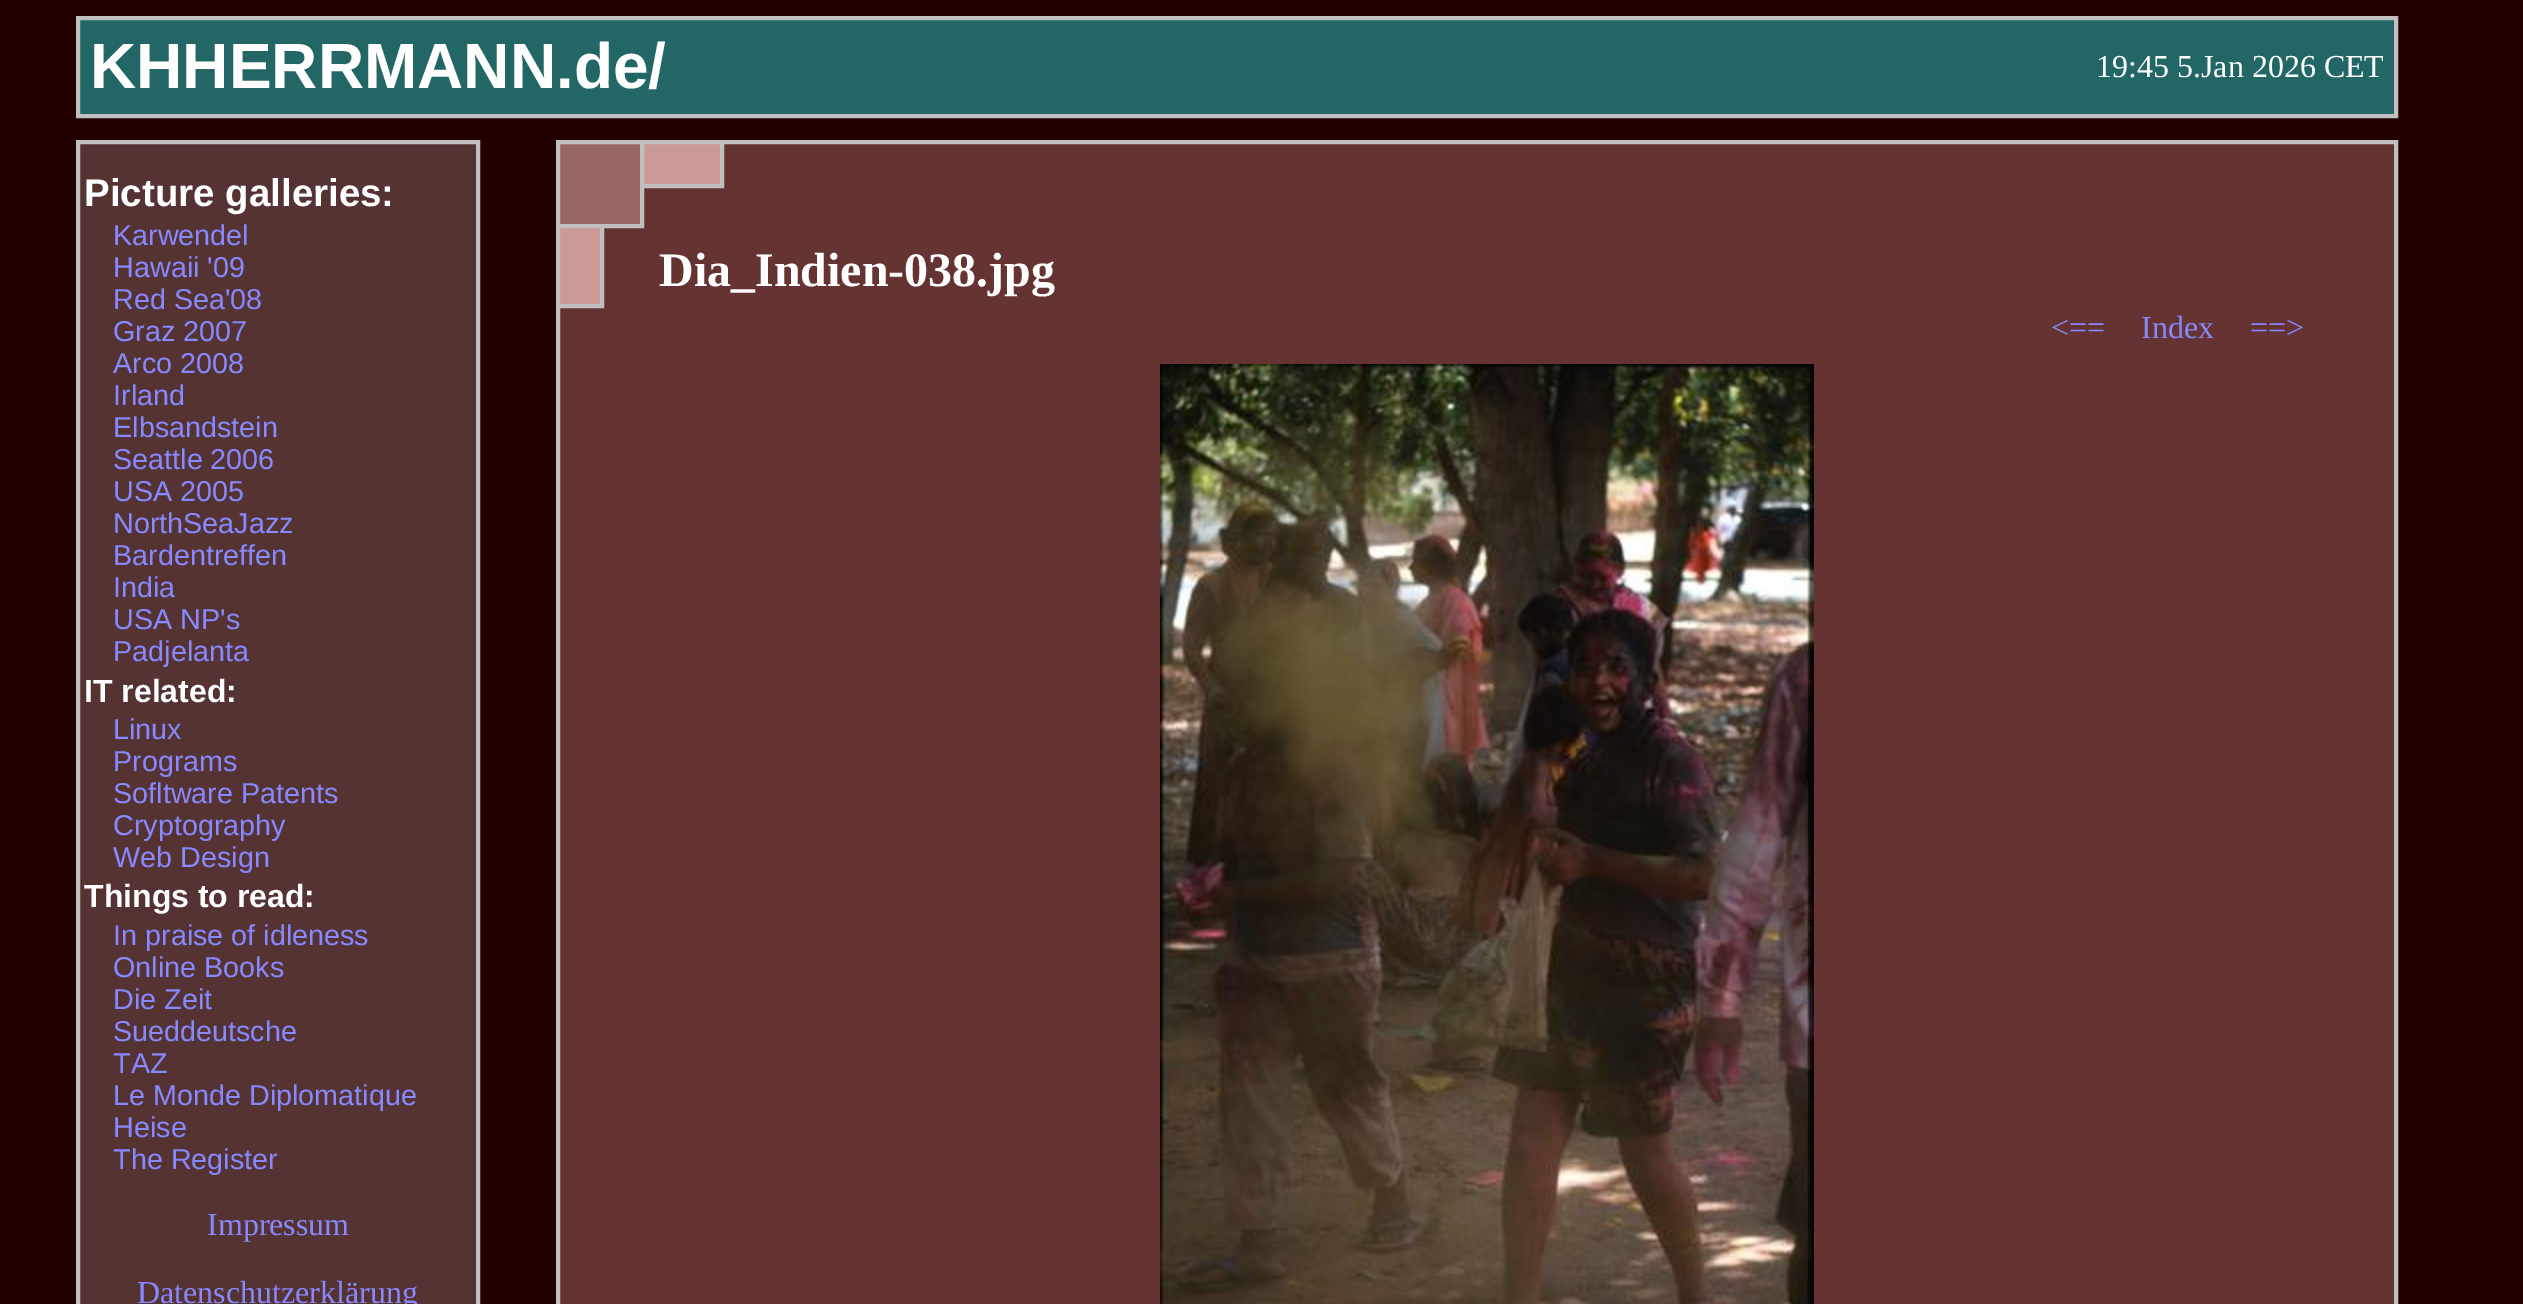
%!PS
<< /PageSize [2523 1304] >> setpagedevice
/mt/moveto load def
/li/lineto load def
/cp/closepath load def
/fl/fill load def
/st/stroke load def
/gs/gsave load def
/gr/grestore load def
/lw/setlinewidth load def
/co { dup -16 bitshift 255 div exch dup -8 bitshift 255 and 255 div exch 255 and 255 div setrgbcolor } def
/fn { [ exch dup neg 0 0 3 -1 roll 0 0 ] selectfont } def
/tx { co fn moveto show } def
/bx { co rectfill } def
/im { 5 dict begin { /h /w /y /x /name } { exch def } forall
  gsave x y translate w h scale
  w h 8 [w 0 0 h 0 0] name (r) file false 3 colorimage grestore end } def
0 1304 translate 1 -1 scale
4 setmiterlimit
0 0 2523 1304 16#220000 bx
16#226666 co
78 18 mt 2396 18 li 2396 116 li 78 116 li cp gs fl gr
16#C0C0C0 co
4 lw
st
16#663333 co
558 142 mt 2396 142 li 2396 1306 li 558 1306 li cp gs fl gr
16#C0C0C0 co
st
644 144 76 40 16#CC9999 bx
16#C0C0C0 co
558 142 164 44 rectstroke
560 228 40 76 16#CC9999 bx
16#C0C0C0 co
558 142 44 164 rectstroke
16#553333 co
78 142 mt 478 142 li 478 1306 li 78 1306 li cp gs fl gr
16#C0C0C0 co
st
16#996666 co
558 142 mt 642 142 li 642 226 li 558 226 li cp gs fl gr
16#C0C0C0 co
st
(media/1.raw) 1160 364 654 940 im
(KHHERRMANN.de/) 90 88 /LiberationSans-Bold 64 16#FFFFFF tx
(19:45 5.Jan 2026 CET) 2096 77 /LiberationSerif-Regular 32 16#FFFFFF tx
(Picture galleries:) 84 206 /LiberationSans-Bold 38.5 16#FFFFFF tx
(Karwendel) 113 245 /LiberationSans-Regular 28.75 16#8888FF tx
(Hawaii '09) 113 277 /LiberationSans-Regular 28.75 16#8888FF tx
(Red Sea'08) 113 309 /LiberationSans-Regular 28.75 16#8888FF tx
(Graz 2007) 113 341 /LiberationSans-Regular 28.75 16#8888FF tx
(Arco 2008) 113 373 /LiberationSans-Regular 28.75 16#8888FF tx
(Irland) 113 405 /LiberationSans-Regular 28.75 16#8888FF tx
(Elbsandstein) 113 437 /LiberationSans-Regular 28.75 16#8888FF tx
(Seattle 2006) 113 469 /LiberationSans-Regular 28.75 16#8888FF tx
(USA 2005) 113 501 /LiberationSans-Regular 28.75 16#8888FF tx
(NorthSeaJazz) 113 533 /LiberationSans-Regular 28.75 16#8888FF tx
(Bardentreffen) 113 565 /LiberationSans-Regular 28.75 16#8888FF tx
(India) 113 597 /LiberationSans-Regular 28.75 16#8888FF tx
(USA NP's) 113 629 /LiberationSans-Regular 28.75 16#8888FF tx
(Padjelanta) 113 661 /LiberationSans-Regular 28.75 16#8888FF tx
(IT related:) 84 702 /LiberationSans-Bold 32 16#FFFFFF tx
(Linux) 113 739 /LiberationSans-Regular 28.75 16#8888FF tx
(Programs) 113 771 /LiberationSans-Regular 28.75 16#8888FF tx
(Sofltware Patents) 113 803 /LiberationSans-Regular 28.75 16#8888FF tx
(Cryptography) 113 835 /LiberationSans-Regular 28.75 16#8888FF tx
(Web Design) 113 867 /LiberationSans-Regular 28.75 16#8888FF tx
(Things to read:) 84 907 /LiberationSans-Bold 32 16#FFFFFF tx
(In praise of idleness) 113 945 /LiberationSans-Regular 28.75 16#8888FF tx
(Online Books) 113 977 /LiberationSans-Regular 28.75 16#8888FF tx
(Die Zeit) 113 1009 /LiberationSans-Regular 28.75 16#8888FF tx
(Sueddeutsche) 113 1041 /LiberationSans-Regular 28.75 16#8888FF tx
(TAZ) 113 1073 /LiberationSans-Regular 28.75 16#8888FF tx
(Le Monde Diplomatique) 113 1105 /LiberationSans-Regular 28.75 16#8888FF tx
(Heise) 113 1137 /LiberationSans-Regular 28.75 16#8888FF tx
(The Register) 113 1169 /LiberationSans-Regular 28.75 16#8888FF tx
(Impressum) 207 1235 /LiberationSerif-Regular 32 16#8888FF tx
(Datenschutzerklärung) 137 1303 /LiberationSerif-Regular 32 16#8888FF tx
(Dia_Indien-038.jpg) 659 286 /LiberationSerif-Bold 48 16#FFFFFF tx
(<==) 2051 338 /LiberationSerif-Regular 32 16#8888FF tx
(Index) 2141 338 /LiberationSerif-Regular 32 16#8888FF tx
(==>) 2250 338 /LiberationSerif-Regular 32 16#8888FF tx
showpage
